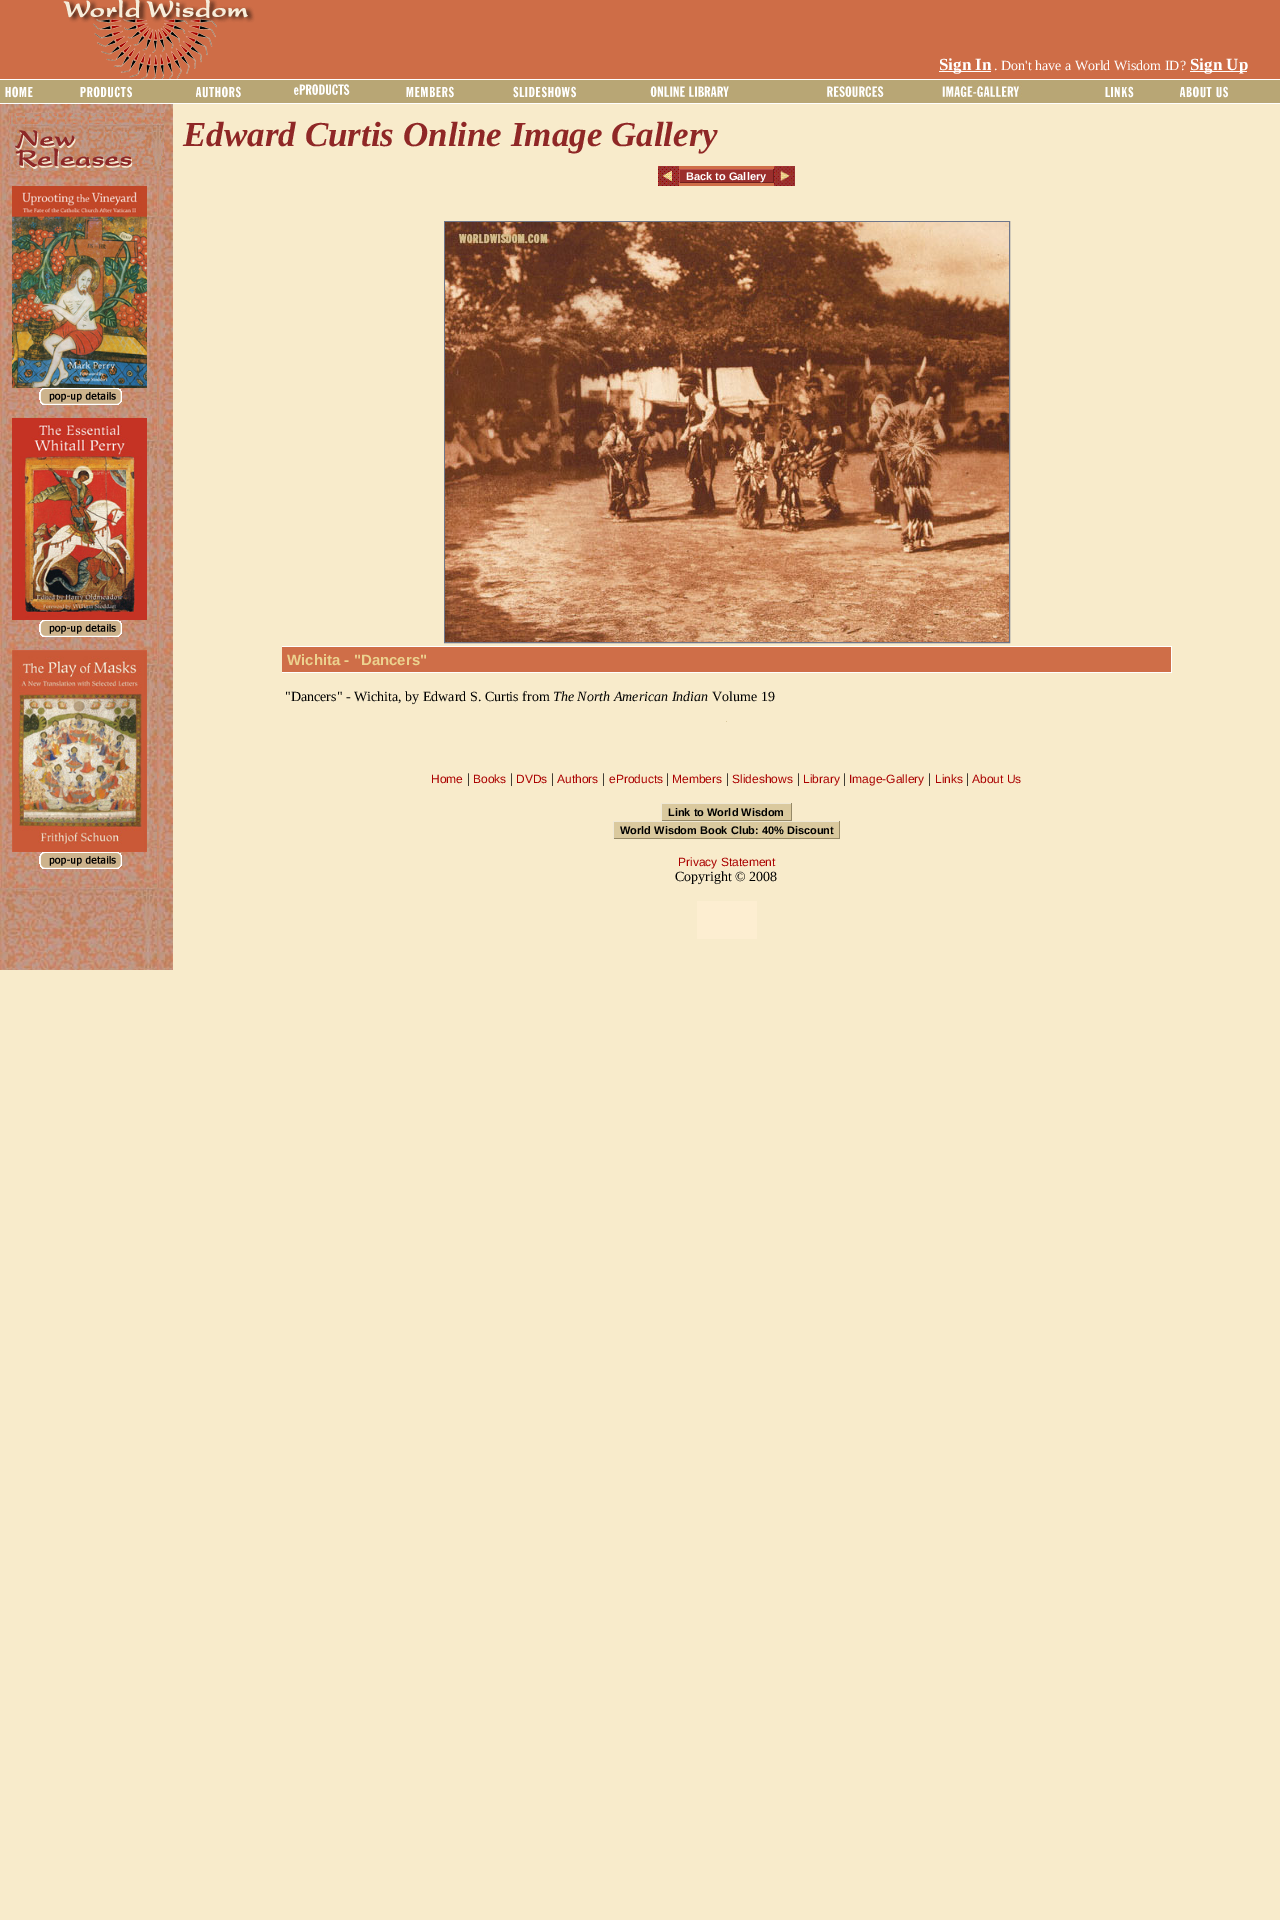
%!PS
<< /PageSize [1280 1920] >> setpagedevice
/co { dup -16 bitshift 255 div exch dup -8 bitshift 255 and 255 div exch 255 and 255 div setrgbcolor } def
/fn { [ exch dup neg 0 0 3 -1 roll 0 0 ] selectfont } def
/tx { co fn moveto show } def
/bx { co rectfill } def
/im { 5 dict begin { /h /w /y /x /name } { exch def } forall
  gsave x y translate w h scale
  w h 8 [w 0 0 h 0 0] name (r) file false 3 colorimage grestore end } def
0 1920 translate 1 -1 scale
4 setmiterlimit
0 0 1280 1920 16#F8EBCB bx
0 0 1280 79 16#CE6D47 bx
(media/1.raw) 63 0 192 79 im
939 71 52 1 16#FFFFFF bx
1190 71 57 1 16#FFFFFF bx
0 80 1280 23 16#B8A675 bx
0 79 1280 1 16#FFFFFF bx
0 103 1280 1 16#FFFFFF bx
(media/2.raw) 5 86 28 12 im
(media/3.raw) 80 86 52 12 im
(media/4.raw) 196 86 45 12 im
(media/5.raw) 294 84 56 11 im
(media/6.raw) 406 86 48 12 im
(media/7.raw) 513 86 63 12 im
(media/8.raw) 650 86 79 11 im
(media/9.raw) 827 82 57 19 im
(media/10.raw) 942 82 80 16 im
(media/11.raw) 1105 86 29 12 im
(media/12.raw) 1180 86 48 12 im
(media/13.raw) 0 104 173 866 im
(media/14.raw) 9 113 155 58 im
(media/15.raw) 12 186 135 202 im
(media/16.raw) 39 388 83 17 im
(media/17.raw) 12 418 135 202 im
(media/18.raw) 39 620 83 17 im
(media/19.raw) 12 650 135 202 im
(media/20.raw) 39 852 83 17 im
(media/21.raw) 658 166 21 20 im
679 166 95 20 16#CF6E48 bx
680 170 93 12 16#9A2E2C bx
679 169 95 1 16#BA4F4D bx
773 169 1 14 16#6F1F1E bx
679 182 95 1 16#6F1F1E bx
679 169 1 14 16#BA4F4D bx
(media/22.raw) 774 166 21 20 im
16#6E768B co
444.5 221.5 565 421 rectstroke
(media/23.raw) 445 222 564 420 im
282 647 889 25 16#CF6E48 bx
282 646 890 1 16#FFFFFF bx
1171 646 1 27 16#FFFFFF bx
282 672 890 1 16#FFFFFF bx
726 721 1 1 16#DAC99E bx
662 804 129 16 16#DAC99E bx
661 803 131 1 16#EFE8D5 bx
791 803 1 18 16#968967 bx
661 820 131 1 16#968967 bx
661 803 1 18 16#EFE8D5 bx
614 822 225 16 16#DAC99E bx
613 821 227 1 16#EFE8D5 bx
839 821 1 18 16#968967 bx
613 838 227 1 16#968967 bx
613 821 1 18 16#EFE8D5 bx
697 901 60 38 16#FDEED1 bx
(Sign In) 939 70 /LiberationSerif-Bold 17 16#FFFFFF tx
(. Don't have a World Wisdom ID?) 994 70 /LiberationSerif-Regular 14 16#FFFFFF tx
(Sign Up) 1190 70 /LiberationSerif-Bold 17 16#FFFFFF tx
(Edward Curtis Online Image Gallery) 183 146 /LiberationSerif-BoldItalic 35 16#8F2726 tx
(Back to Gallery) 686 180 /LiberationSans-Bold 11 16#FFFFFF tx
(Wichita - "Dancers") 287 665 /LiberationSans-Bold 15 16#ECD28F tx
("Dancers" - Wichita, by Edward S. Curtis from) 285 701 /LiberationSerif-Regular 14 16#000000 tx
(The North American Indian) 553 701 /LiberationSerif-Italic 14 16#000000 tx
(Volume 19) 712 701 /LiberationSerif-Regular 14 16#000000 tx
(Home) 431 783 /LiberationSans-Regular 12 16#AA0000 tx
(|) 467 783 /LiberationSerif-Regular 14 16#000000 tx
(Books) 473 783 /LiberationSans-Regular 12 16#AA0000 tx
(|) 510 783 /LiberationSerif-Regular 14 16#000000 tx
(DVDs) 516 783 /LiberationSans-Regular 12 16#AA0000 tx
(|) 551 783 /LiberationSerif-Regular 14 16#000000 tx
(Authors) 557 783 /LiberationSans-Regular 12 16#AA0000 tx
(|) 602 783 /LiberationSerif-Regular 14 16#000000 tx
(eProducts) 609 783 /LiberationSans-Regular 12 16#AA0000 tx
(|) 666 783 /LiberationSerif-Regular 14 16#000000 tx
(Members) 672 783 /LiberationSans-Regular 12 16#AA0000 tx
(|) 726 783 /LiberationSerif-Regular 14 16#000000 tx
(Slideshows) 732 783 /LiberationSans-Regular 12 16#AA0000 tx
(|) 797 783 /LiberationSerif-Regular 14 16#000000 tx
(Library) 803 783 /LiberationSans-Regular 12 16#AA0000 tx
(|) 843 783 /LiberationSerif-Regular 14 16#000000 tx
(Image-Gallery) 849 783 /LiberationSans-Regular 12 16#AA0000 tx
(|) 928 783 /LiberationSerif-Regular 14 16#000000 tx
(Links) 935 783 /LiberationSans-Regular 12 16#AA0000 tx
(|) 966 783 /LiberationSerif-Regular 14 16#000000 tx
(About Us) 972 783 /LiberationSans-Regular 12 16#AA0000 tx
(Link to World Wisdom) 668 816 /LiberationSans-Bold 11 16#000000 tx
(World Wisdom Book Club: 40% Discount) 620 834 /LiberationSans-Bold 11 16#000000 tx
(Privacy Statement) 678 866 /LiberationSans-Regular 12 16#AA0000 tx
(Copyright © 2008) 675 881 /LiberationSerif-Regular 14 16#000000 tx
showpage
